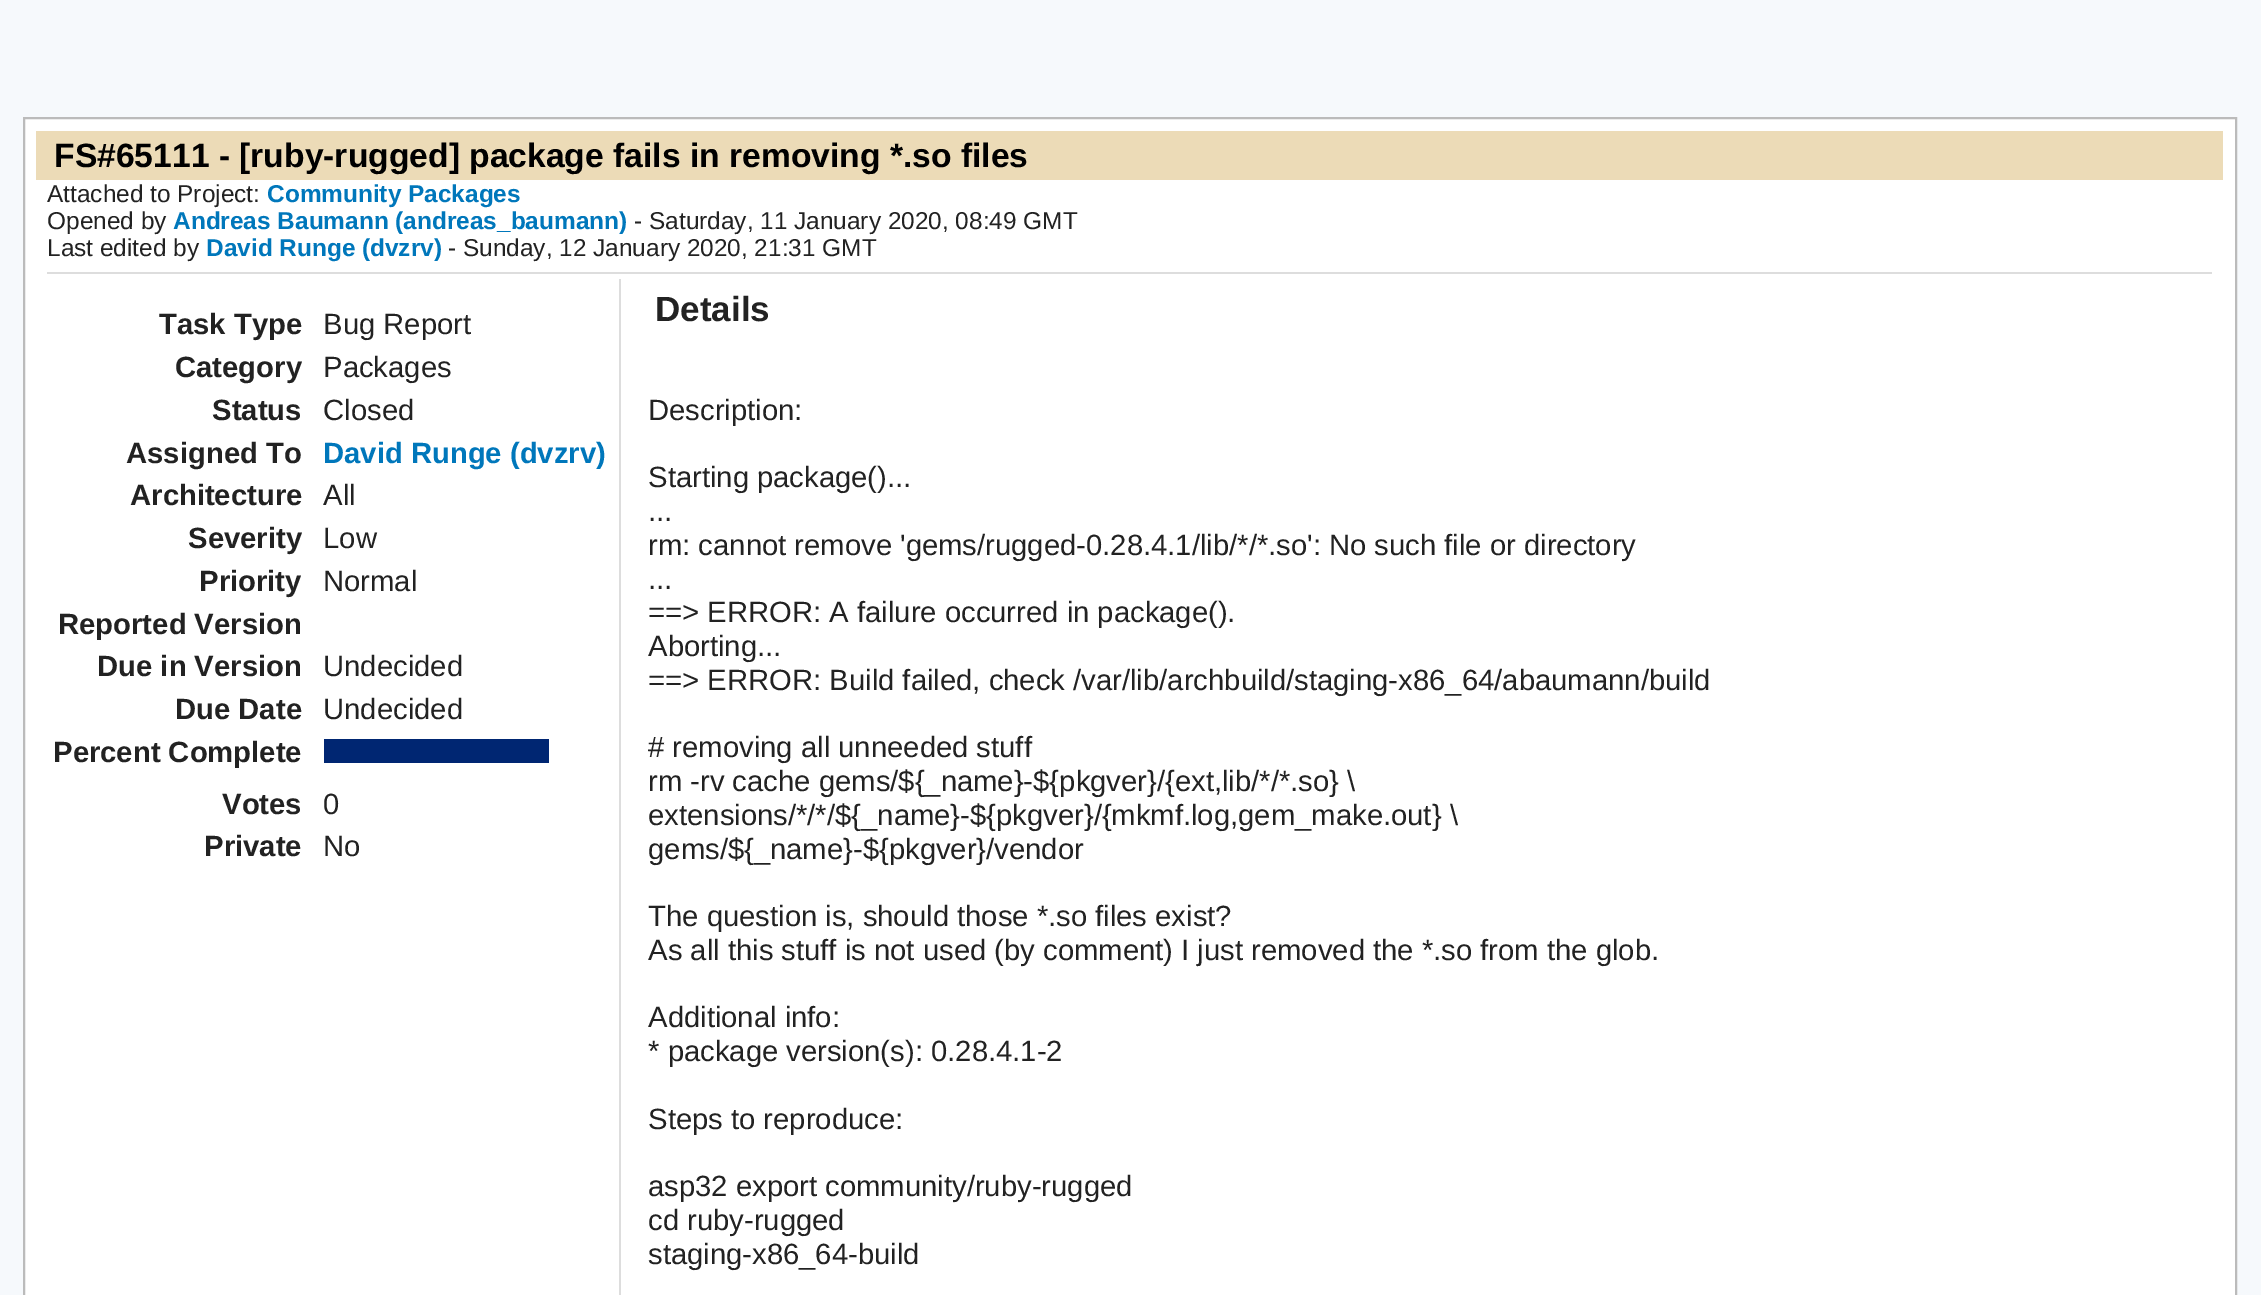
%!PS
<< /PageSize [2261 1295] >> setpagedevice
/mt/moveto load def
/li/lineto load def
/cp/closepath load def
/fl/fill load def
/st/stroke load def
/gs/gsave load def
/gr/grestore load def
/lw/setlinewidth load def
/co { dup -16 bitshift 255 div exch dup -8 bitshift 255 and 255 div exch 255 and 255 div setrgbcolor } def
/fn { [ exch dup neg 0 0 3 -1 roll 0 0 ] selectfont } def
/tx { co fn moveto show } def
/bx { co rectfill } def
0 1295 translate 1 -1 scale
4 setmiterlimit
0 0 2261 1295 16#F6F9FC bx
16#FFFFFF co
24 118 mt 2236 118 li 2236 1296 li 24 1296 li cp gs fl gr
16#BBBBBB co
2 lw
st
36 131 2187 49 16#ECDBB7 bx
47 272 2165 2 16#DDDDDD bx
619 279 2 1016 16#DDDDDD bx
324 739 225 24 16#002672 bx
(FS#65111 - [ruby-rugged] package fails in removing *.so files) 54 167 /LiberationSans-Bold 33.65 16#000000 tx
(Attached to Project:) 47 202 /LiberationSans-Regular 24.4 16#222222 tx
(Community Packages) 267 202 /LiberationSans-Bold 24.4 16#0077BB tx
(Opened by) 47 229 /LiberationSans-Regular 24.4 16#222222 tx
(Andreas Baumann \(andreas_baumann\)) 173 229 /LiberationSans-Bold 24.4 16#0077BB tx
(- Saturday, 11 January 2020, 08:49 GMT) 634 229 /LiberationSans-Regular 24.4 16#222222 tx
(Last edited by) 47 256 /LiberationSans-Regular 24.4 16#222222 tx
(David Runge \(dvzrv\)) 206 256 /LiberationSans-Bold 24.4 16#0077BB tx
(- Sunday, 12 January 2020, 21:31 GMT) 448 256 /LiberationSans-Regular 24.4 16#222222 tx
(Task Type) 159 334 /LiberationSans-Bold 29.25 16#222222 tx
(Bug Report) 323 334 /LiberationSans-Regular 29.25 16#222222 tx
(Category) 175 377 /LiberationSans-Bold 29.25 16#222222 tx
(Packages) 323 377 /LiberationSans-Regular 29.25 16#222222 tx
(Status) 212 420 /LiberationSans-Bold 29.25 16#222222 tx
(Closed) 323 420 /LiberationSans-Regular 29.25 16#222222 tx
(Assigned To) 126 463 /LiberationSans-Bold 29.25 16#222222 tx
(David Runge \(dvzrv\)) 323 463 /LiberationSans-Bold 29.25 16#0077BB tx
(Architecture) 130 505 /LiberationSans-Bold 29.25 16#222222 tx
(All) 323 505 /LiberationSans-Regular 29.25 16#222222 tx
(Severity) 188 548 /LiberationSans-Bold 29.25 16#222222 tx
(Low) 323 548 /LiberationSans-Regular 29.25 16#222222 tx
(Priority) 199 591 /LiberationSans-Bold 29.25 16#222222 tx
(Normal) 323 591 /LiberationSans-Regular 29.25 16#222222 tx
(Reported Version) 58 634 /LiberationSans-Bold 29.25 16#222222 tx
(Due in Version) 97 676 /LiberationSans-Bold 29.25 16#222222 tx
(Undecided) 323 676 /LiberationSans-Regular 29.25 16#222222 tx
(Due Date) 175 719 /LiberationSans-Bold 29.25 16#222222 tx
(Undecided) 323 719 /LiberationSans-Regular 29.25 16#222222 tx
(Percent Complete) 53 762 /LiberationSans-Bold 29.25 16#222222 tx
(Votes) 222 814 /LiberationSans-Bold 29.25 16#222222 tx
(0) 323 814 /LiberationSans-Regular 29.25 16#222222 tx
(Private) 204 856 /LiberationSans-Bold 29.25 16#222222 tx
(No) 323 856 /LiberationSans-Regular 29.25 16#222222 tx
(Details) 655 321 /LiberationSans-Bold 35 16#222222 tx
(Description:) 648 420 /LiberationSans-Regular 29.25 16#222222 tx
(Starting package\(\)...) 648 487 /LiberationSans-Regular 29.25 16#222222 tx
(...) 648 521 /LiberationSans-Regular 29.25 16#222222 tx
(rm: cannot remove 'gems/rugged-0.28.4.1/lib/*/*.so': No such file or directory) 648 555 /LiberationSans-Regular 29.25 16#222222 tx
(...) 648 589 /LiberationSans-Regular 29.25 16#222222 tx
(==> ERROR: A failure occurred in package\(\).) 648 622 /LiberationSans-Regular 29.25 16#222222 tx
(Aborting...) 648 656 /LiberationSans-Regular 29.25 16#222222 tx
(==> ERROR: Build failed, check /var/lib/archbuild/staging-x86_64/abaumann/build) 648 690 /LiberationSans-Regular 29.25 16#222222 tx
(# removing all unneeded stuff) 648 757 /LiberationSans-Regular 29.25 16#222222 tx
(rm -rv cache gems/${_name}-${pkgver}/{ext,lib/*/*.so} \\) 648 791 /LiberationSans-Regular 29.25 16#222222 tx
(extensions/*/*/${_name}-${pkgver}/{mkmf.log,gem_make.out} \\) 648 825 /LiberationSans-Regular 29.25 16#222222 tx
(gems/${_name}-${pkgver}/vendor) 648 859 /LiberationSans-Regular 29.25 16#222222 tx
(The question is, should those *.so files exist?) 648 926 /LiberationSans-Regular 29.25 16#222222 tx
(As all this stuff is not used \(by comment\) I just removed the *.so from the glob.) 648 960 /LiberationSans-Regular 29.25 16#222222 tx
(Additional info:) 648 1027 /LiberationSans-Regular 29.25 16#222222 tx
(* package version\(s\): 0.28.4.1-2) 648 1061 /LiberationSans-Regular 29.25 16#222222 tx
(Steps to reproduce:) 648 1129 /LiberationSans-Regular 29.25 16#222222 tx
(asp32 export community/ruby-rugged) 648 1196 /LiberationSans-Regular 29.25 16#222222 tx
(cd ruby-rugged) 648 1230 /LiberationSans-Regular 29.25 16#222222 tx
(staging-x86_64-build) 648 1264 /LiberationSans-Regular 29.25 16#222222 tx
showpage
